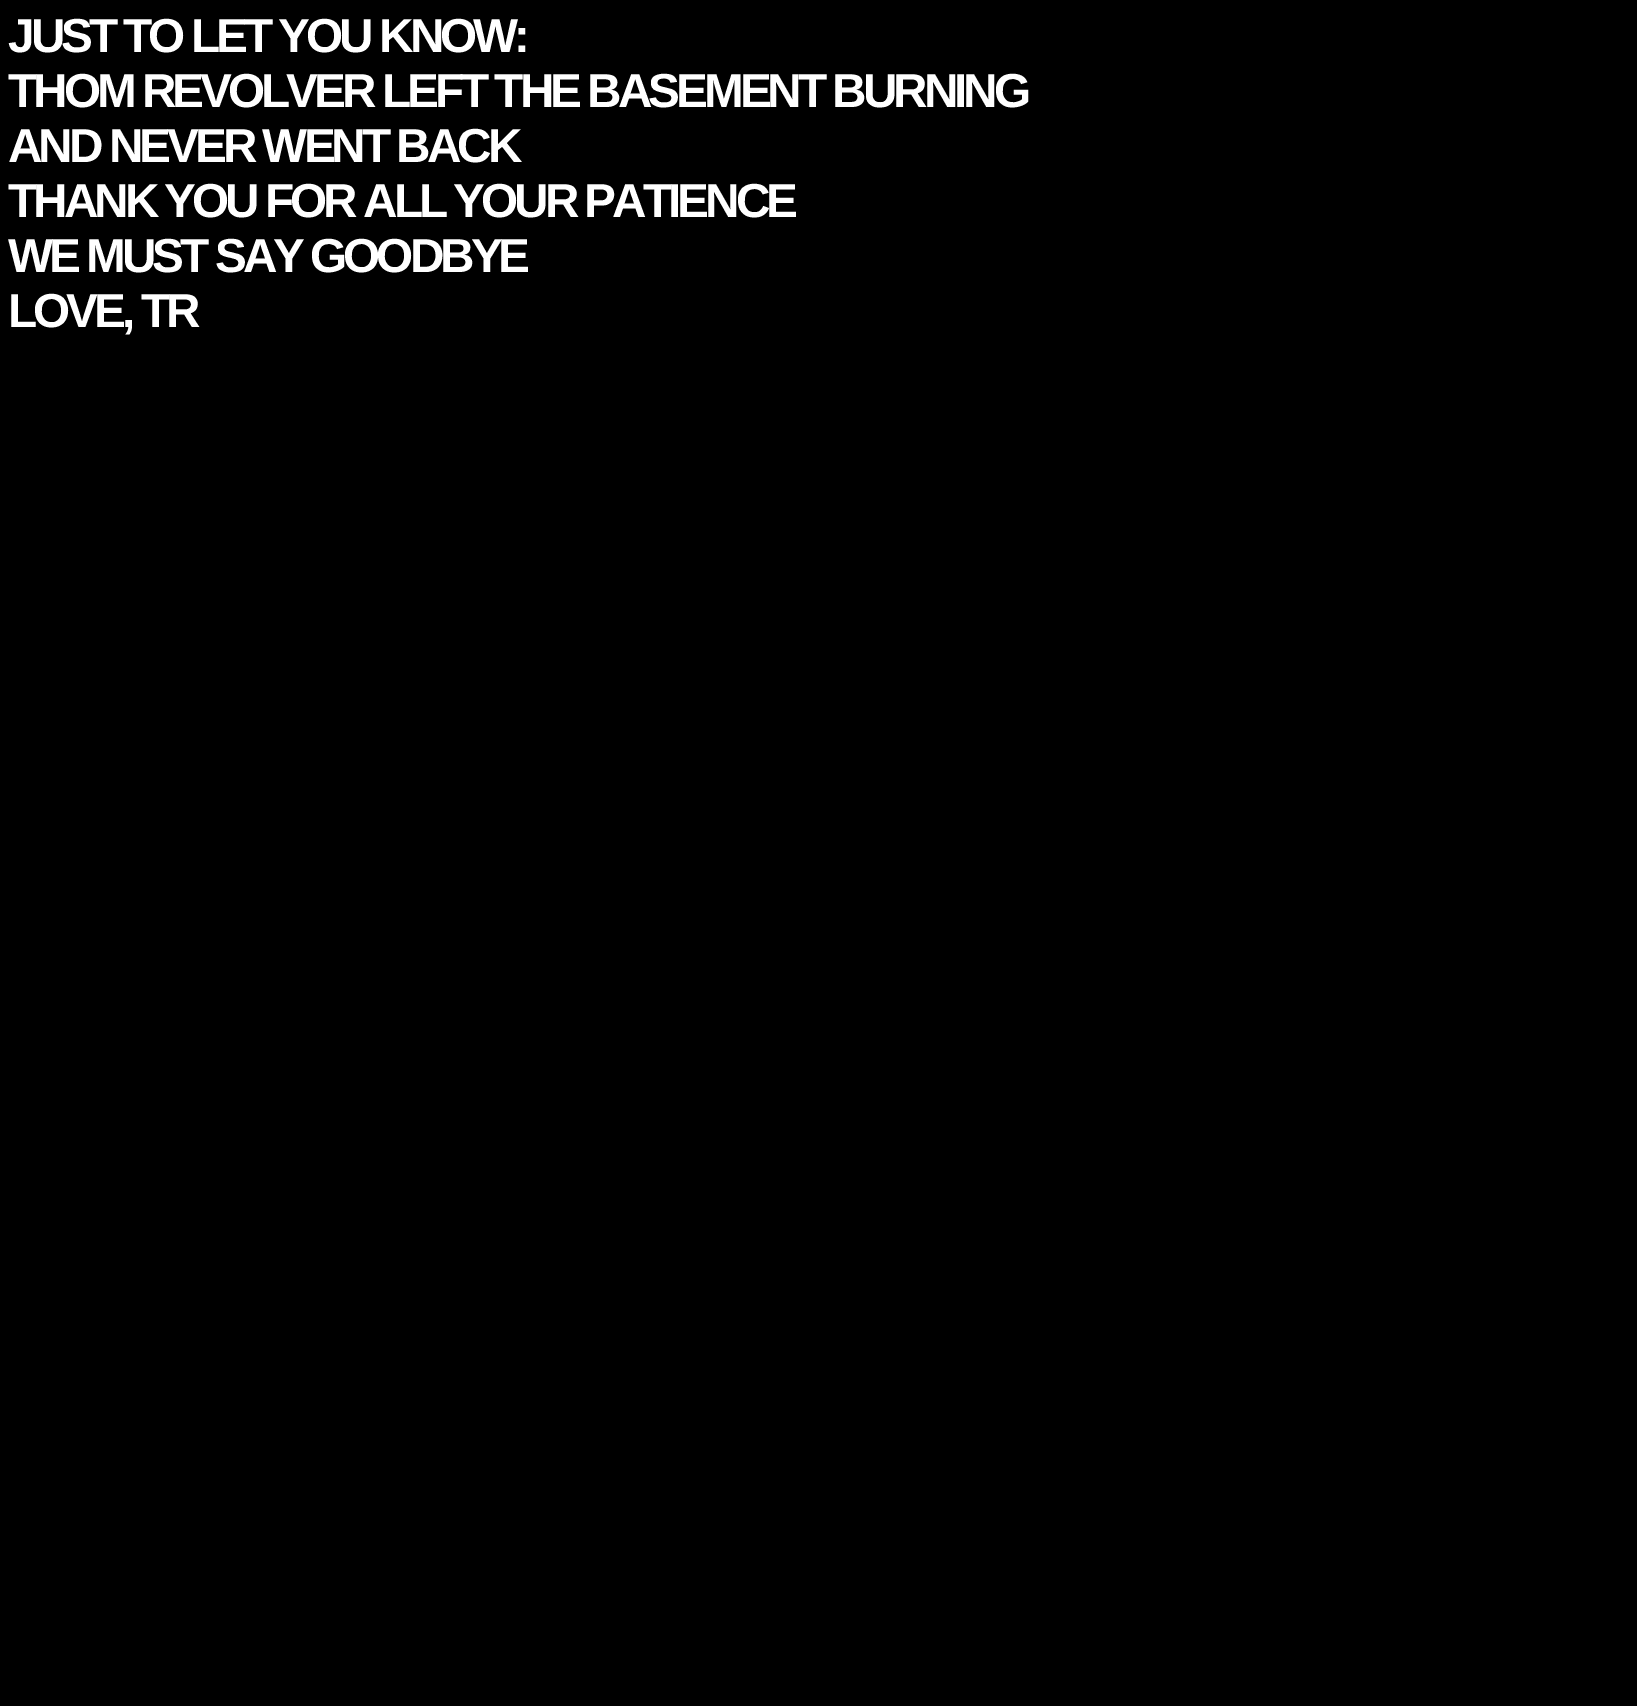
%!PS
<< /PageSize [1637 1706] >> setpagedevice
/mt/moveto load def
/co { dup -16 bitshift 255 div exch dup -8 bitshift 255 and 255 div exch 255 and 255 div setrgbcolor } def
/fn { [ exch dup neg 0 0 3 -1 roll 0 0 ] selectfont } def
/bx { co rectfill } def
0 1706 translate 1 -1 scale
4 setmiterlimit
0 0 1637 1706 16#000000 bx
/LiberationSans-Bold 47.75 fn
16#FFFFFF co
8 52 mt -4 0 (JUST TO LET YOU KNOW:) ashow
8 107 mt -4 0 (THOM REVOLVER LEFT THE BASEMENT BURNING) ashow
8 162 mt -4 0 (AND NEVER WENT BACK) ashow
8 217 mt -4 0 (THANK YOU FOR ALL YOUR PATIENCE) ashow
8 272 mt -4 0 (WE MUST SAY GOODBYE) ashow
8 327 mt -4 0 (LOVE, TR) ashow
showpage
